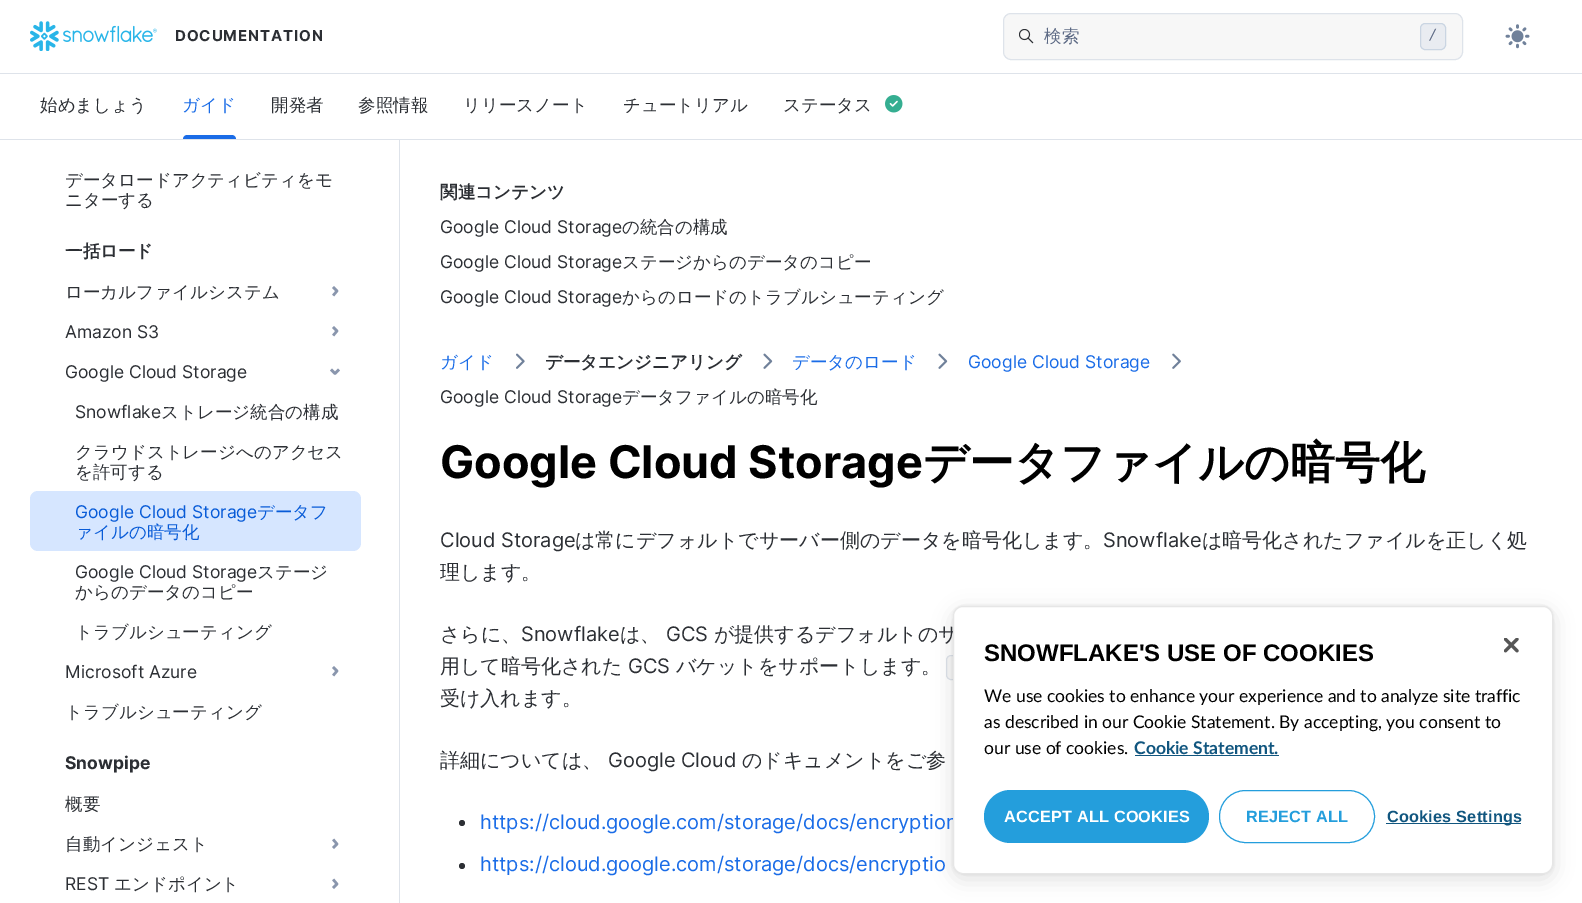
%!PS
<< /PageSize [1582 903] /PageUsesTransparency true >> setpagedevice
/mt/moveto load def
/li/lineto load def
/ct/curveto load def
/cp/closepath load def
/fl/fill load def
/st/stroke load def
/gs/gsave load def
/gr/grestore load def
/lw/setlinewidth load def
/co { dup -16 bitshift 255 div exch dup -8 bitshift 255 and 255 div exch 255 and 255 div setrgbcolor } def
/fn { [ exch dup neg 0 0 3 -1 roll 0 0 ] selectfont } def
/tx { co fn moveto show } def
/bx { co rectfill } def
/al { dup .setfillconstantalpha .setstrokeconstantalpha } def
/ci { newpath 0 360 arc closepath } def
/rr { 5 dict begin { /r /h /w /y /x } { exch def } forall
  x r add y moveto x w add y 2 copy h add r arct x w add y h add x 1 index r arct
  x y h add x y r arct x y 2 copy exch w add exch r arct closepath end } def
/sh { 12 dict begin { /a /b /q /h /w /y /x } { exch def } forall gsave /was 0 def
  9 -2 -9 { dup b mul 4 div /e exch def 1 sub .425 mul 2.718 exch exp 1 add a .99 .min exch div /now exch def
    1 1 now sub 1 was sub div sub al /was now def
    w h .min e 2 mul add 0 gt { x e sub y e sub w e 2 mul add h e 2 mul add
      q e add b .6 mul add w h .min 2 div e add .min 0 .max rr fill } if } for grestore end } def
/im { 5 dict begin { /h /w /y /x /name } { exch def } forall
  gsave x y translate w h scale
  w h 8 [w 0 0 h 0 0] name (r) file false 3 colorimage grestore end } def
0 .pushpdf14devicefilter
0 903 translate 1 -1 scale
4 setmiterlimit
0 0 1582 903 16#FFFFFF bx
0 73 1582 1 16#DEE3EA bx
(media/1.raw) 30 21 127 30 im
16#F7F7F7 co
1003.5 13.5 459 46 7.5 rr gs fl gr
16#DEE3EA co
st
(media/2.raw) 1019 29 15 15 im
16#E9ECF1 co
1420.5 23.5 25 26 4.5 rr gs fl gr
16#CAD5E2 co
st
(media/3.raw) 1505 24 25 25 im
0 139 1582 1 16#DEE3EA bx
16#1A6CE7 co
187 135 mt 232 135 li 234 135 236 137 236 139 ct 183 139 li 183 137 185 135 187 135 ct cp fl
(media/4.raw) 885 95 18 18 im
399 140 1 763 16#DEE3EA bx
16#8A96AD co
2.5 lw
2 setlinecap
1 setlinejoin
334 294.5 mt 337 291 li 334 288 li 334 334.5 mt 337 331 li 334 328 li st
332 370.5 mt 335 373.5 li 338 370.5 li st
16#D6E6FF co
30 491 331 60 8 rr fl
16#8A96AD co
334 674.5 mt 337 671 li 334 668 li st
334 847 mt 337 844 li 334 840.5 li 334 887 mt 337 884 li 334 880.5 li st
(media/5.raw) 516 353 9 16 im
(media/6.raw) 763 353 10 16 im
(media/6.raw) 938 353 10 16 im
(media/7.raw) 1172 353 9 16 im
16#F7F7F7 co
946.5 655.5 127 24 4.5 rr gs fl gr
16#DEE3EA co
1 lw
0 setlinecap
0 setlinejoin
st
16#2C2F34 co
462 823 3 ci fl
462 866 3 ci fl
16#000000 co
953 606 600 268 10 1 .08 sh
953 611 600 268 10 10 .12 sh
/Inter-Bold 15 fn
16#2C2F34 co
175 41 mt .9 0 (DOCUMENTATION) ashow
(検索) 1044 42 /WenQuanYiZenHei-Medium 17.5 16#5D6A85 tx
(/) 1428 40 /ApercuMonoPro-Regular 15 16#5D6A85 tx
(始めましょう) 40 111 /WenQuanYiZenHei-Medium 17.5 16#2C2F34 tx
(ガイド) 182 111 /WenQuanYiZenHei-Medium 17.5 16#1A6CE7 tx
(開発者) 271 111 /WenQuanYiZenHei-Medium 17.5 16#2C2F34 tx
(参照情報) 358 111 /WenQuanYiZenHei-Medium 17.5 16#2C2F34 tx
(リリースノート) 463 111 /WenQuanYiZenHei-Medium 17.5 16#2C2F34 tx
(チュートリアル) 623 111 /WenQuanYiZenHei-Medium 17.5 16#2C2F34 tx
(ステータス) 783 111 /WenQuanYiZenHei-Medium 17.5 16#2C2F34 tx
(データロードアクティビティをモ) 65 186 /WenQuanYiZenHei-Medium 17.5 16#2C2F34 tx
(ニターする) 65 206 /WenQuanYiZenHei-Medium 17.5 16#2C2F34 tx
(一括ロード) 65 257 /WenQuanYiZenHei-Bold 17.5 16#2C2F34 tx
(ローカルファイルシステム) 65 298 /WenQuanYiZenHei-Medium 17.5 16#2C2F34 tx
(Amazon S3) 65 338 /Inter-Regular 17.5 16#2C2F34 tx
(Google Cloud Storage) 65 378 /Inter-Regular 17.5 16#2C2F34 tx
(Snowflake) 75 418 /Inter-Regular 17.5 16#2C2F34 tx
(ストレージ統合の構成) 161 418 /WenQuanYiZenHei-Medium 17.5 16#2C2F34 tx
(クラウドストレージへのアクセス) 75 458 /WenQuanYiZenHei-Medium 17.5 16#2C2F34 tx
(を許可する) 75 478 /WenQuanYiZenHei-Medium 17.5 16#2C2F34 tx
(Google Cloud Storage) 75 518 /Inter-Regular 17.5 16#085BD7 tx
(データフ) 257 518 /WenQuanYiZenHei-Medium 17.5 16#085BD7 tx
(ァイルの暗号化) 75 538 /WenQuanYiZenHei-Medium 17.5 16#085BD7 tx
(Google Cloud Storage) 75 578 /Inter-Regular 17.5 16#2C2F34 tx
(ステージ) 257 578 /WenQuanYiZenHei-Medium 17.5 16#2C2F34 tx
(からのデータのコピー) 75 598 /WenQuanYiZenHei-Medium 17.5 16#2C2F34 tx
(トラブルシューティング) 75 638 /WenQuanYiZenHei-Medium 17.5 16#2C2F34 tx
(Microsoft Azure) 65 678 /Inter-Regular 17.5 16#2C2F34 tx
(トラブルシューティング) 65 718 /WenQuanYiZenHei-Medium 17.5 16#2C2F34 tx
(Snowpipe) 65 769 /Inter-Bold 17.5 16#2C2F34 tx
(概要) 65 810 /WenQuanYiZenHei-Medium 17.5 16#2C2F34 tx
(自動インジェスト) 65 850 /WenQuanYiZenHei-Medium 17.5 16#2C2F34 tx
(REST) 65 890 /Inter-Regular 17.5 16#2C2F34 tx
(エンドポイント) 114 890 /WenQuanYiZenHei-Medium 17.5 16#2C2F34 tx
(関連コンテンツ) 440 198 /WenQuanYiZenHei-Bold 17.5 16#2C2F34 tx
(Google Cloud Storage) 440 233 /Inter-Regular 17.5 16#2C2F34 tx
(の統合の構成) 622 233 /WenQuanYiZenHei-Medium 17.5 16#2C2F34 tx
(Google Cloud Storage) 440 268 /Inter-Regular 17.5 16#2C2F34 tx
(ステージからのデータのコピー) 622 268 /WenQuanYiZenHei-Medium 17.5 16#2C2F34 tx
(Google Cloud Storage) 440 303 /Inter-Regular 17.5 16#2C2F34 tx
(からのロードのトラブルシューティング) 622 303 /WenQuanYiZenHei-Medium 17.5 16#2C2F34 tx
(ガイド) 440 368 /WenQuanYiZenHei-Medium 17.5 16#1A6CE7 tx
(データエンジニアリング) 545 368 /WenQuanYiZenHei-Bold 17.5 16#2C2F34 tx
(データのロード) 792 368 /WenQuanYiZenHei-Medium 17.5 16#1A6CE7 tx
(Google Cloud Storage) 968 368 /Inter-Regular 17.5 16#1A6CE7 tx
(Google Cloud Storage) 440 403 /Inter-Regular 17.5 16#2C2F34 tx
(データファイルの暗号化) 622 403 /WenQuanYiZenHei-Medium 17.5 16#2C2F34 tx
(Google Cloud Storage) 440 478 /Inter-Bold 45 16#000000 tx
(データファイルの暗号化) 923 478 /WenQuanYiZenHei-Bold 45 16#000000 tx
(Cloud Storage) 440 547 /Inter-Regular 20 16#2C2F34 tx
(は常にデフォルトでサーバー側のデータを暗号化します。) 575 547 /WenQuanYiZenHei-Medium 20 16#2C2F34 tx
(Snowflake) 1103 547 /Inter-Regular 20 16#2C2F34 tx
(は暗号化されたファイルを正しく処) 1202 547 /WenQuanYiZenHei-Medium 20 16#2C2F34 tx
(理します。) 440 579 /WenQuanYiZenHei-Medium 20 16#2C2F34 tx
(さらに、) 440 641 /WenQuanYiZenHei-Medium 20 16#2C2F34 tx
(Snowflake) 521 641 /Inter-Regular 20 16#2C2F34 tx
(は、) 620 641 /WenQuanYiZenHei-Medium 20 16#2C2F34 tx
(GCS) 666 641 /Inter-Regular 20 16#2C2F34 tx
(が提供するデフォルトのサ) 714 641 /WenQuanYiZenHei-Medium 20 16#2C2F34 tx
(用して暗号化された) 440 673 /WenQuanYiZenHei-Medium 20 16#2C2F34 tx
(GCS) 628 673 /Inter-Regular 20 16#2C2F34 tx
(バケットをサポートします。) 676 673 /WenQuanYiZenHei-Medium 20 16#2C2F34 tx
(受け入れます。) 440 705 /WenQuanYiZenHei-Medium 20 16#2C2F34 tx
(詳細については、) 440 767 /WenQuanYiZenHei-Medium 20 16#2C2F34 tx
(Google Cloud) 608 767 /Inter-Regular 20 16#2C2F34 tx
(のドキュメントをご参) 742 767 /WenQuanYiZenHei-Medium 20 16#2C2F34 tx
(https://cloud.google.com/storage/docs/encryption) 480 829 /Inter-Regular 20 16#1A6CE7 tx
(https://cloud.google.com/storage/docs/encryptio) 480 871 /Inter-Regular 20 16#1A6CE7 tx
16#FFFFFF co
953.5 606.5 599 267 9.5 rr gs fl gr
16#E6E6E6 co
st
(media/8.raw) 1504 638 15 15 im
(SNOWFLAKE'S USE OF COOKIES) 984 661 /LiberationSans-Bold 24 16#000000 tx
(We use cookies to enhance your experience and to analyze site traffic) 984 702 /Lato-Regular 17.5 16#000000 tx
(as described in our Cookie Statement. By accepting, you consent to) 984 728 /Lato-Regular 17.5 16#000000 tx
(our use of cookies.) 984 754 /Lato-Regular 17.5 16#000000 tx
(Cookie Statement.) 1134 754 /Lato-Bold 17.5 16#11567F tx
1135 755 144 1 16#11567F bx
16#249EDC co
984 790 225 53 26.5 rr fl
/LiberationSans-Bold 16.25 fn
16#FFFFFF co
1004 822 mt .2 0 (ACCEPT ALL COOKIES) ashow
16#249EDC co
1219.5 790.5 155 52 26 rr st
1246 822 mt .2 0 (REJECT ALL) ashow
1386 823 135 1 16#11567F bx
1387 822 mt .2 0 (Cookies Settings) ashow
.poppdf14devicefilter showpage
